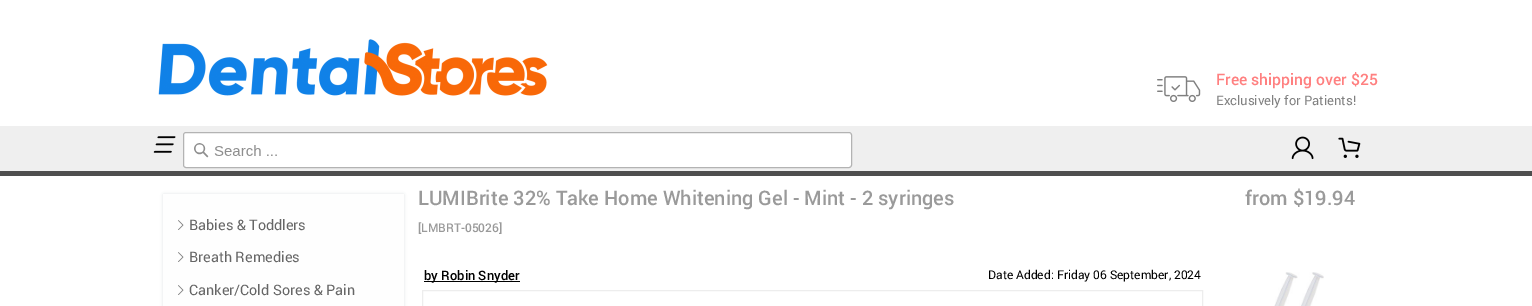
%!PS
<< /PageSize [1532 306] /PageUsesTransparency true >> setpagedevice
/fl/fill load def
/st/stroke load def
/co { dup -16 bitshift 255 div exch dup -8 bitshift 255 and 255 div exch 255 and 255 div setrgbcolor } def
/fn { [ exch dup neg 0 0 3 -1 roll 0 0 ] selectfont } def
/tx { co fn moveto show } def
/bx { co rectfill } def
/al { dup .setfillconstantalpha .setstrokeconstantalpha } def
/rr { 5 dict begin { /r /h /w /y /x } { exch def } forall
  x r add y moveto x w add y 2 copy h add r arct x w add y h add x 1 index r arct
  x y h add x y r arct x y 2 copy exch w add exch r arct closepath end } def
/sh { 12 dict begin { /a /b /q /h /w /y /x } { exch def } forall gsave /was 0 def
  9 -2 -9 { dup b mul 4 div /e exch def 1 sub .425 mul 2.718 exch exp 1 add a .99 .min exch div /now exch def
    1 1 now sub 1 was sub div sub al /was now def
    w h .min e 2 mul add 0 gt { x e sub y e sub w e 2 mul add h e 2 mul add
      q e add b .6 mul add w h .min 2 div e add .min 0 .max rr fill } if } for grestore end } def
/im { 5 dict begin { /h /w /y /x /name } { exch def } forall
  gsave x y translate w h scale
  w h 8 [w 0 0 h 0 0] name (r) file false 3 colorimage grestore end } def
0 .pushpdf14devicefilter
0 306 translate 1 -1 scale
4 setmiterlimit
0 0 1532 306 16#FFFFFF bx
(media/1.raw) 158 39 390 57 im
(media/2.raw) 1157 76 44 26 im
0 126 1532 45 16#EFEFEF bx
(media/3.raw) 153 136 23 17 im
16#FFFFFF co
183 132 669 36 3 rr fl
(media/4.raw) 194 143 83 15 im
16#B3B3B3 co
183.5 132.5 668 35 2.5 rr st
(media/5.raw) 1291 136 23 24 im
(media/6.raw) 1338 137 23 21 im
0 171 1532 5 16#4E4E4E bx
16#3C4858 co
163 194 241 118 1 1.5 .15 sh
163 194 241 112 16#FEFEFE bx
(media/7.raw) 178 220 6 10 im
(media/7.raw) 178 252 6 10 im
(media/7.raw) 178 285 6 10 im
424 281 96 1 16#000000 bx
16#EDEDED co
422.5 290.5 780 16 rectstroke
(media/8.raw) 1274 272 50 34 im
(Free shipping over $25) 1216 85 /Roboto-Medium 15.75 16#FF8080 tx
(Exclusively for Patients!) 1216 105 /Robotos-Regular 13 16#808080 tx
(Babies & Toddlers) 189 230 /Robotos-Regular 14.4 16#666666 tx
(Breath Remedies) 189 262 /Robotos-Regular 14.4 16#666666 tx
(Canker/Cold Sores & Pain) 189 295 /Robotos-Regular 14.4 16#666666 tx
(LUMIBrite 32% Take Home Whitening Gel - Mint - 2 syringes) 418 205 /Roboto-Medium 20 16#9A9A9A tx
([LMBRT-05026]) 418 232 /Roboto-Medium 12 16#9A9A9A tx
(from $19.94) 1245 205 /Roboto-Medium 20 16#9A9A9A tx
(by Robin Snyder) 424 280 /Roboto-Medium 13 16#000000 tx
(Date Added: Friday 06 September, 2024) 988 279 /Robotos-Regular 12 16#000000 tx
.poppdf14devicefilter showpage
